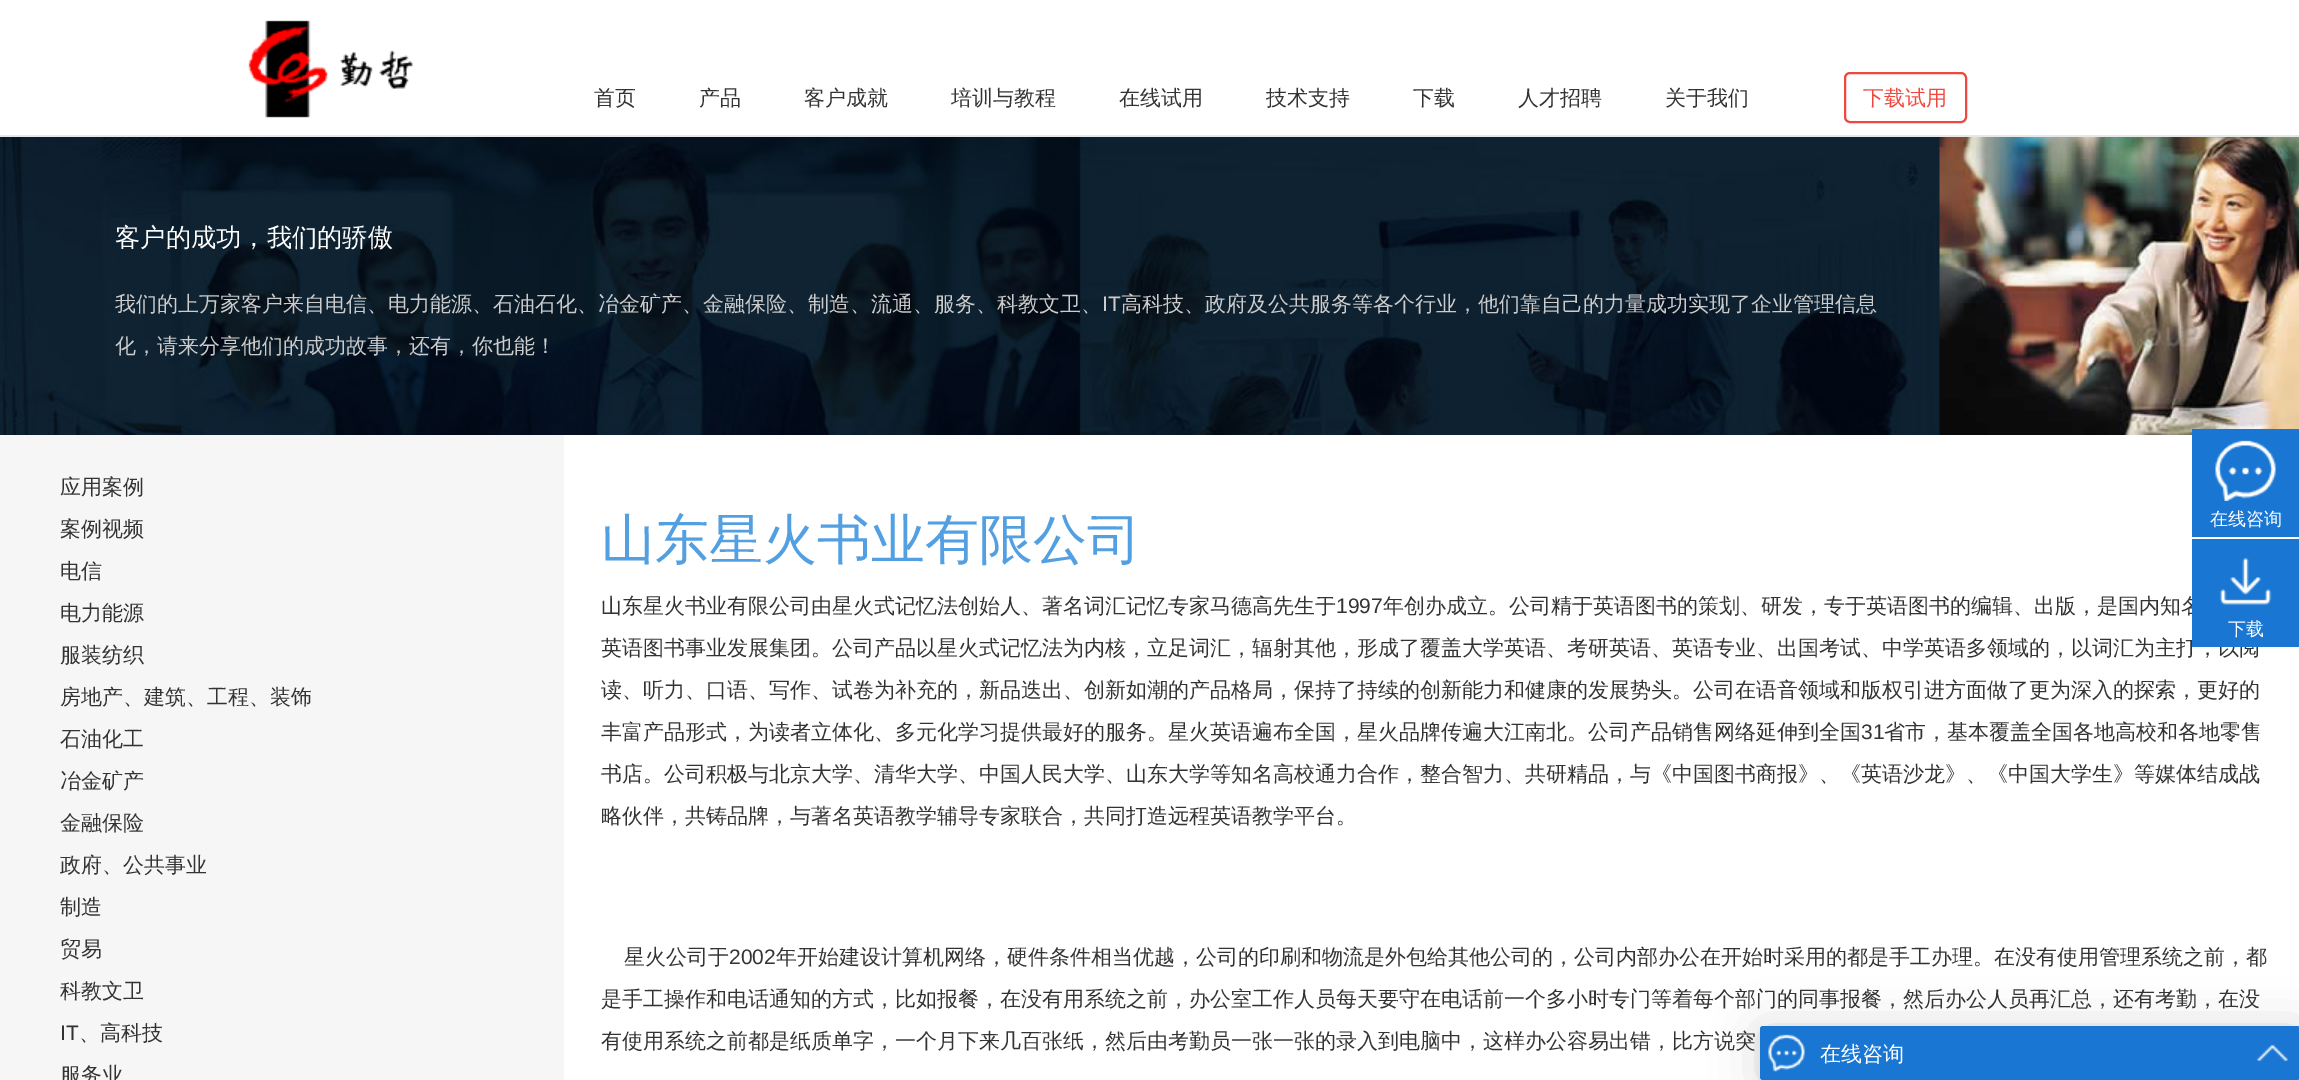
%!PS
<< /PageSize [2299 1080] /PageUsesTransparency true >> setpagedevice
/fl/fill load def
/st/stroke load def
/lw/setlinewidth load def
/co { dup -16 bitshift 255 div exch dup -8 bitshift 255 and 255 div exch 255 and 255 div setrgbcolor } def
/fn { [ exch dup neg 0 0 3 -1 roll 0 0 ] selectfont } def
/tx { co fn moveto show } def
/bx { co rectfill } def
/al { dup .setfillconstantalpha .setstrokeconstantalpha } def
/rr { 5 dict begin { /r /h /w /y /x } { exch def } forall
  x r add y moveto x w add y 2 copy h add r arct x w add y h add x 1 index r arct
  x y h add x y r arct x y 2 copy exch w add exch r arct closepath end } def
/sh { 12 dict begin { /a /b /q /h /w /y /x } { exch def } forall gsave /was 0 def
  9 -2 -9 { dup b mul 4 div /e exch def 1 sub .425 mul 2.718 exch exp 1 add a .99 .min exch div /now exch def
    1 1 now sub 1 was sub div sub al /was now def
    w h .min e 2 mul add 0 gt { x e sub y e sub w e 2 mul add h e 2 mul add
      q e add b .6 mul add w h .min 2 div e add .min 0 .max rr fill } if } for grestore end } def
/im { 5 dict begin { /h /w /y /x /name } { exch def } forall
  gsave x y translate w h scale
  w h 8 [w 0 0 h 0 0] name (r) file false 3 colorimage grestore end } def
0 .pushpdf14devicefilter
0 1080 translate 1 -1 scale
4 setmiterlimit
0 0 2299 1080 16#FFFFFF bx
0 135 2299 2 16#E7E7E7 bx
(media/1.raw) 248 20 165 98 im
16#F0483E co
2 lw
1845 73 121 49 5 rr st
(media/2.raw) 0 137 1940 298 im
(media/3.raw) 1939 137 360 298 im
0 435 564 645 16#F6F6F6 bx
2192 429 107 108 16#1976D2 bx
(media/4.raw) 2215 440 61 61 im
16#000000 co
1760 1029 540 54 3 24 .16 sh
1760 1028 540 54 3 4.5 .06 sh
16#1976D2 co
1760 1026 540 54 3 rr fl
(media/6.raw) 1768 1034 37 38 im
(media/7.raw) 2257 1044 31 18 im
(首页) 594 105 /WenQuanYiZenHei-Medium 21 16#333333 tx
(产品) 699 105 /WenQuanYiZenHei-Medium 21 16#333333 tx
(客户成就) 804 105 /WenQuanYiZenHei-Medium 21 16#333333 tx
(培训与教程) 951 105 /WenQuanYiZenHei-Medium 21 16#333333 tx
(在线试用) 1119 105 /WenQuanYiZenHei-Medium 21 16#333333 tx
(技术支持) 1266 105 /WenQuanYiZenHei-Medium 21 16#333333 tx
(下载) 1413 105 /WenQuanYiZenHei-Medium 21 16#333333 tx
(人才招聘) 1518 105 /WenQuanYiZenHei-Medium 21 16#333333 tx
(关于我们) 1665 105 /WenQuanYiZenHei-Medium 21 16#333333 tx
(下载试用) 1863 105 /WenQuanYiZenHei-Medium 21 16#F0483E tx
(客户的成功，我们的骄傲) 115 246 /WenQuanYiZenHei-Medium 25.25 16#FFFFFF tx
(我们的上万家客户来自电信、电力能源、石油石化、冶金矿产、金融保险、制造、流通、服务、科教文卫、) 115 311 /WenQuanYiZenHei-Medium 21 16#CCCCCC tx
(IT) 1102 311 /LiberationSans-Regular 21 16#CCCCCC tx
(高科技、政府及公共服务等各个行业，他们靠自己的力量成功实现了企业管理信息) 1121 311 /WenQuanYiZenHei-Medium 21 16#CCCCCC tx
(化，请来分享他们的成功故事，还有，你也能！) 115 353 /WenQuanYiZenHei-Medium 21 16#CCCCCC tx
(应用案例) 60 494 /WenQuanYiZenHei-Medium 21 16#333333 tx
(案例视频) 60 536 /WenQuanYiZenHei-Medium 21 16#333333 tx
(电信) 60 578 /WenQuanYiZenHei-Medium 21 16#333333 tx
(电力能源) 60 620 /WenQuanYiZenHei-Medium 21 16#333333 tx
(服装纺织) 60 662 /WenQuanYiZenHei-Medium 21 16#333333 tx
(房地产、建筑、工程、装饰) 60 704 /WenQuanYiZenHei-Medium 21 16#333333 tx
(石油化工) 60 746 /WenQuanYiZenHei-Medium 21 16#333333 tx
(冶金矿产) 60 788 /WenQuanYiZenHei-Medium 21 16#333333 tx
(金融保险) 60 830 /WenQuanYiZenHei-Medium 21 16#333333 tx
(政府、公共事业) 60 872 /WenQuanYiZenHei-Medium 21 16#333333 tx
(制造) 60 914 /WenQuanYiZenHei-Medium 21 16#333333 tx
(贸易) 60 956 /WenQuanYiZenHei-Medium 21 16#333333 tx
(科教文卫) 60 998 /WenQuanYiZenHei-Medium 21 16#333333 tx
(IT) 60 1040 /LiberationSans-Regular 21 16#333333 tx
(、高科技) 79 1040 /WenQuanYiZenHei-Medium 21 16#333333 tx
(服务业) 60 1082 /WenQuanYiZenHei-Medium 21 16#333333 tx
(山东星火书业有限公司) 601 558 /WenQuanYiZenHei-Medium 54 16#52A0E1 tx
(山东星火书业有限公司由星火式记忆法创始人、著名词汇记忆专家马德高先生于) 601 613 /WenQuanYiZenHei-Medium 21 16#333333 tx
(1997) 1336 613 /LiberationSans-Regular 21 16#333333 tx
(年创办成立。公司精于英语图书的策划、研发，专于英语图书的编辑、出版，是国内知名) 1383 613 /WenQuanYiZenHei-Medium 21 16#333333 tx
(英语图书事业发展集团。公司产品以星火式记忆法为内核，立足词汇，辐射其他，形成了覆盖大学英语、考研英语、英语专业、出国考试、中学英语多领域的，以词汇为主打，以阅) 601 655 /WenQuanYiZenHei-Medium 21 16#333333 tx
(读、听力、口语、写作、试卷为补充的，新品迭出、创新如潮的产品格局，保持了持续的创新能力和健康的发展势头。公司在语音领域和版权引进方面做了更为深入的探索，更好的) 601 697 /WenQuanYiZenHei-Medium 21 16#333333 tx
(丰富产品形式，为读者立体化、多元化学习提供最好的服务。星火英语遍布全国，星火品牌传遍大江南北。公司产品销售网络延伸到全国) 601 739 /WenQuanYiZenHei-Medium 21 16#333333 tx
(31) 1861 739 /LiberationSans-Regular 21 16#333333 tx
(省市，基本覆盖全国各地高校和各地零售) 1884 739 /WenQuanYiZenHei-Medium 21 16#333333 tx
(书店。公司积极与北京大学、清华大学、中国人民大学、山东大学等知名高校通力合作，整合智力、共研精品，与《中国图书商报》、《英语沙龙》、《中国大学生》等媒体结成战) 601 781 /WenQuanYiZenHei-Medium 21 16#333333 tx
(略伙伴，共铸品牌，与著名英语教学辅导专家联合，共同打造远程英语教学平台。) 601 823 /WenQuanYiZenHei-Medium 21 16#333333 tx
(星火公司于) 624 964 /WenQuanYiZenHei-Medium 21 16#333333 tx
(2002) 729 964 /LiberationSans-Regular 21 16#333333 tx
(年开始建设计算机网络，硬件条件相当优越，公司的印刷和物流是外包给其他公司的，公司内部办公在开始时采用的都是手工办理。在没有使用管理系统之前，都) 776 964 /WenQuanYiZenHei-Medium 21 16#333333 tx
(是手工操作和电话通知的方式，比如报餐，在没有用系统之前，办公室工作人员每天要守在电话前一个多小时专门等着每个部门的同事报餐，然后办公人员再汇总，还有考勤，在没) 601 1006 /WenQuanYiZenHei-Medium 21 16#333333 tx
(有使用系统之前都是纸质单字，一个月下来几百张纸，然后由考勤员一张一张的录入到电脑中，这样办公容易出错，比方说突) 601 1048 /WenQuanYiZenHei-Medium 21 16#333333 tx
(在线咨询) 2210 525 /WenQuanYiZenHei-Medium 18 16#FFFFFF tx
2192 539 107 108 16#1976D2 bx
(media/5.raw) 2219 557 53 48 im
(下载) 2228 635 /WenQuanYiZenHei-Medium 18 16#FFFFFF tx
(在线咨询) 1820 1061 /WenQuanYiZenHei-Medium 21 16#FFFFFF tx
.poppdf14devicefilter showpage
